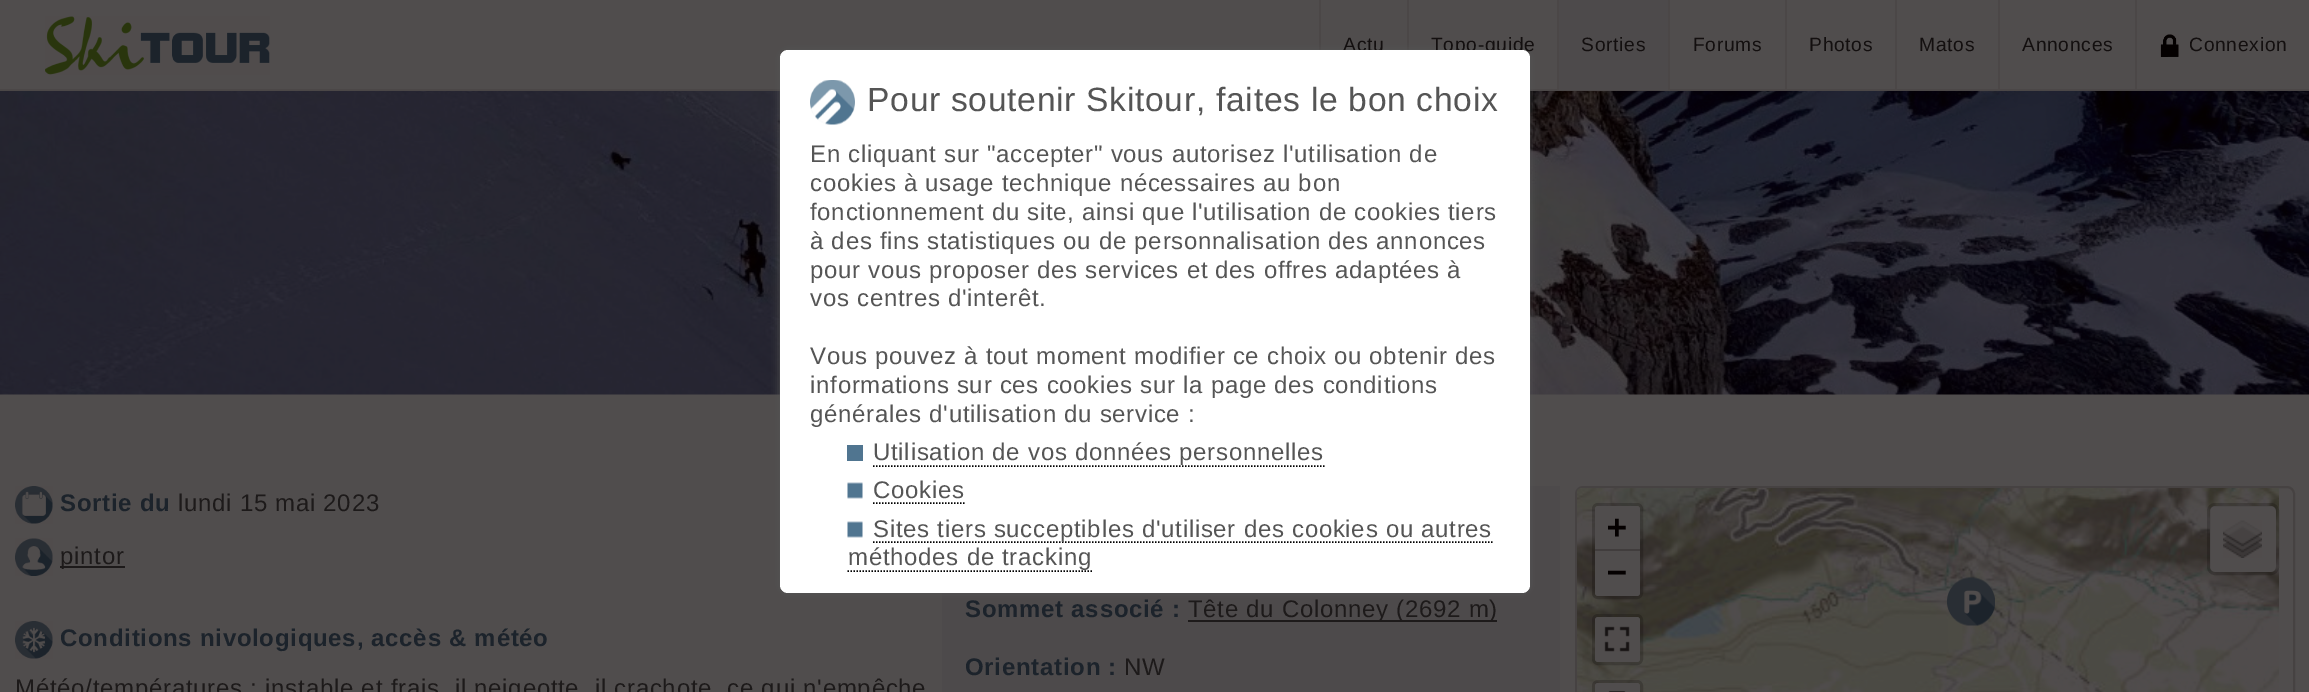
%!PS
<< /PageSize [2309 692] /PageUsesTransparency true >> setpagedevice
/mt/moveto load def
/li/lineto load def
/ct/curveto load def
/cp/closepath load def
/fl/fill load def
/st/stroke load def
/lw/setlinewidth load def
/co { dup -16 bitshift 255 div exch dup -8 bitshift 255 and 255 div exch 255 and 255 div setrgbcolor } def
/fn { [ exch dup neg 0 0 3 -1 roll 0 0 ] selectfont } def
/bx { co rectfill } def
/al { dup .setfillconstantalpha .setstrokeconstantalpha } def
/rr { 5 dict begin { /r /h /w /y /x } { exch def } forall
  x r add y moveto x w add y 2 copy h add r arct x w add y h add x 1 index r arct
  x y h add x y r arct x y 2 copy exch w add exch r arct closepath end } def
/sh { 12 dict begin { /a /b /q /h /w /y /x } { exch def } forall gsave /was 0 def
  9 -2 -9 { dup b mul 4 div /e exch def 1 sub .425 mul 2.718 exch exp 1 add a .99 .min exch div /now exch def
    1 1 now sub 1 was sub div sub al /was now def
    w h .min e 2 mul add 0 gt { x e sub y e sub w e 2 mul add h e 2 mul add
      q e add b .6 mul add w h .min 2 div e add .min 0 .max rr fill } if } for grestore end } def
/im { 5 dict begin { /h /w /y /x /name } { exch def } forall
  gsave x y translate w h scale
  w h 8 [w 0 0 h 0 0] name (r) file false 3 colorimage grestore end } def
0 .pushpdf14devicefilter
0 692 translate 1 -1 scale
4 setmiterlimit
0 0 2309 692 16#504D4D bx
0 89 2309 2 16#4B4747 bx
(media/1.raw) 45 16 225 59 im
1319 0 2 50 16#4B4747 bx
1407 0 2 50 16#4B4747 bx
1559 0 109 90 16#4D4A4B bx
1557 0 2 90 16#4B4747 bx
1668 0 2 90 16#4B4747 bx
1785 0 2 90 16#4B4747 bx
1895 0 2 90 16#4B4747 bx
1998 0 2 90 16#4B4747 bx
2135 0 2 90 16#4B4747 bx
(media/2.raw) 2160 34 19 23 im
(media/5.raw) 0 91 2309 304 im
942 486 618 206 16#4D4A4B bx
16#555555 co
780 50 750 543 8 4 1 sh
(media/6.raw) 15 486 38 38 im
(media/7.raw) 15 538 38 38 im
60 566 65 2 16#1D1A1A bx
(media/8.raw) 15 621 38 38 im
1188 620 309 2 16#1D1A1A bx
16#464242 co
2 lw
1576 487 718 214 7 rr st
(media/9.raw) 1577 488 195 204 im
(media/10.raw) 1772 488 507 204 im
(media/11.raw) 1947 577 48 49 im
0.2 al
16#040000 co
3 lw
1593.5 504.5 48 93 4.5 rr st
1 al
16#504D4D co
1598 506 mt 1637 506 li 1638.5 506 1640 507.5 1640 509 ct 1640 551 li 1595 551 li 1595 509 li 1595 507.5 1596.5 506 1598 506 ct cp fl
1595 549 45 2 16#413D3D bx
16#504D4D co
1595 551 mt 1640 551 li 1640 593 li 1640 594.5 1638.5 596 1637 596 ct 1598 596 li 1596.5 596 1595 594.5 1595 593 ct cp fl
0.2 al
16#040000 co
1593.5 615.5 48 48 4.5 rr st
1 al
16#504D4D co
1595 617 45 45 3 rr fl
(media/12.raw) 1604 626 26 26 im
0.2 al
16#040000 co
1593.5 681.5 48 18 4.5 rr st
1 al
16#504D4D co
1598 683 mt 1637 683 li 1638.5 683 1640 684.5 1640 686 ct 1640 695 li 1595 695 li 1595 686 li 1595 684.5 1596.5 683 1598 683 ct cp fl
(media/13.raw) 1608 691 18 1 im
2210 506 66 66 5 rr fl
0.2 al
16#040000 co
2208.5 504.5 69 69 6.5 rr st
1 al
(media/14.raw) 2223 520 39 38 im
/LiberationSans-Regular 19.25 fn
16#130F0F co
1343 51 mt .72 0 (Actu) ashow
1431 51 mt .72 0 (Topo-guide) ashow
1581 51 mt .72 0 (Sorties) ashow
1693 51 mt .72 0 (Forums) ashow
1809 51 mt .72 0 (Photos) ashow
1919 51 mt .72 0 (Matos) ashow
2022 51 mt .72 0 (Annonces) ashow
2189 51 mt .72 0 (Connexion) ashow
16#FFFFFF co
780 50 750 543 8 rr fl
(media/3.raw) 810 80 45 45 im
/LiberationSans-Regular 33.6 fn
16#555555 co
867 111 mt .72 0 (Pour soutenir Skitour, faites le bon choix) ashow
/LiberationSans-Regular 24 fn
810 162 mt .72 0 (En cliquant sur "accepter" vous autorisez l'utilisation de) ashow
810 191 mt .72 0 (cookies à usage technique nécessaires au bon) ashow
810 220 mt .72 0 (fonctionnement du site, ainsi que l'utilisation de cookies tiers) ashow
810 249 mt .72 0 (à des fins statistiques ou de personnalisation des annonces) ashow
810 278 mt .72 0 (pour vous proposer des services et des offres adaptées à) ashow
810 306 mt .72 0 (vos centres d'interêt.) ashow
810 364 mt .72 0 (Vous pouvez à tout moment modifier ce choix ou obtenir des) ashow
810 393 mt .72 0 (informations sur ces cookies sur la page des conditions) ashow
810 422 mt .72 0 (générales d'utilisation du service :) ashow
847 445 16 16 16#507590 bx
16#555555 co
873 460 mt .72 0 (Utilisation de vos données personnelles) ashow
16#000000 co
1.5 lw
[1.5 1.5] 0 setdash
873 466 mt 1324.5 466 li st
(media/4.raw) 847 482 16 17 im
16#555555 co
873 498 mt .72 0 (Cookies) ashow
16#000000 co
873 503 mt 964.5 503 li st
(media/4.raw) 847 521 16 17 im
873 542 mt 1492.5 542 li st
16#555555 co
873 537 mt .72 0 (Sites tiers succeptibles d'utiliser des cookies ou autres) ashow
848 565 mt .72 0 (méthodes de tracking) ashow
16#000000 co
847.5 571 mt 1092 571 li st
/LiberationSans-Bold 24 fn
16#1C232B co
60 511 mt .72 0 (Sortie du) ashow
/LiberationSans-Regular 24 fn
16#1D1A1A co
178 511 mt .72 0 (lundi 15 mai 2023) ashow
60 564 mt .72 0 (pintor) ashow
/LiberationSans-Bold 24 fn
16#1C232B co
60 646 mt .72 0 (Conditions nivologiques, accès & météo) ashow
965 617 mt .72 0 (Sommet associé :) ashow
/LiberationSans-Regular 24 fn
16#1D1A1A co
1188 617 mt .72 0 (Tête du Colonney \(2692 m\)) ashow
/LiberationSans-Bold 24 fn
16#1C232B co
965 675 mt .72 0 (Orientation :) ashow
/LiberationSans-Regular 24 fn
16#1D1A1A co
1124 675 mt .72 0 (NW) ashow
15 696 mt .25 0 32 .72 0 (Météo/températures : instable et frais, il neigeotte, il crachote, ce qui n'empêche) awidthshow
/DejaVuSansMono-Bold 33 fn
16#040000 co
1607 538 mt .72 0 (+) ashow
1607 583 mt .72 0 (−) ashow
.poppdf14devicefilter showpage
